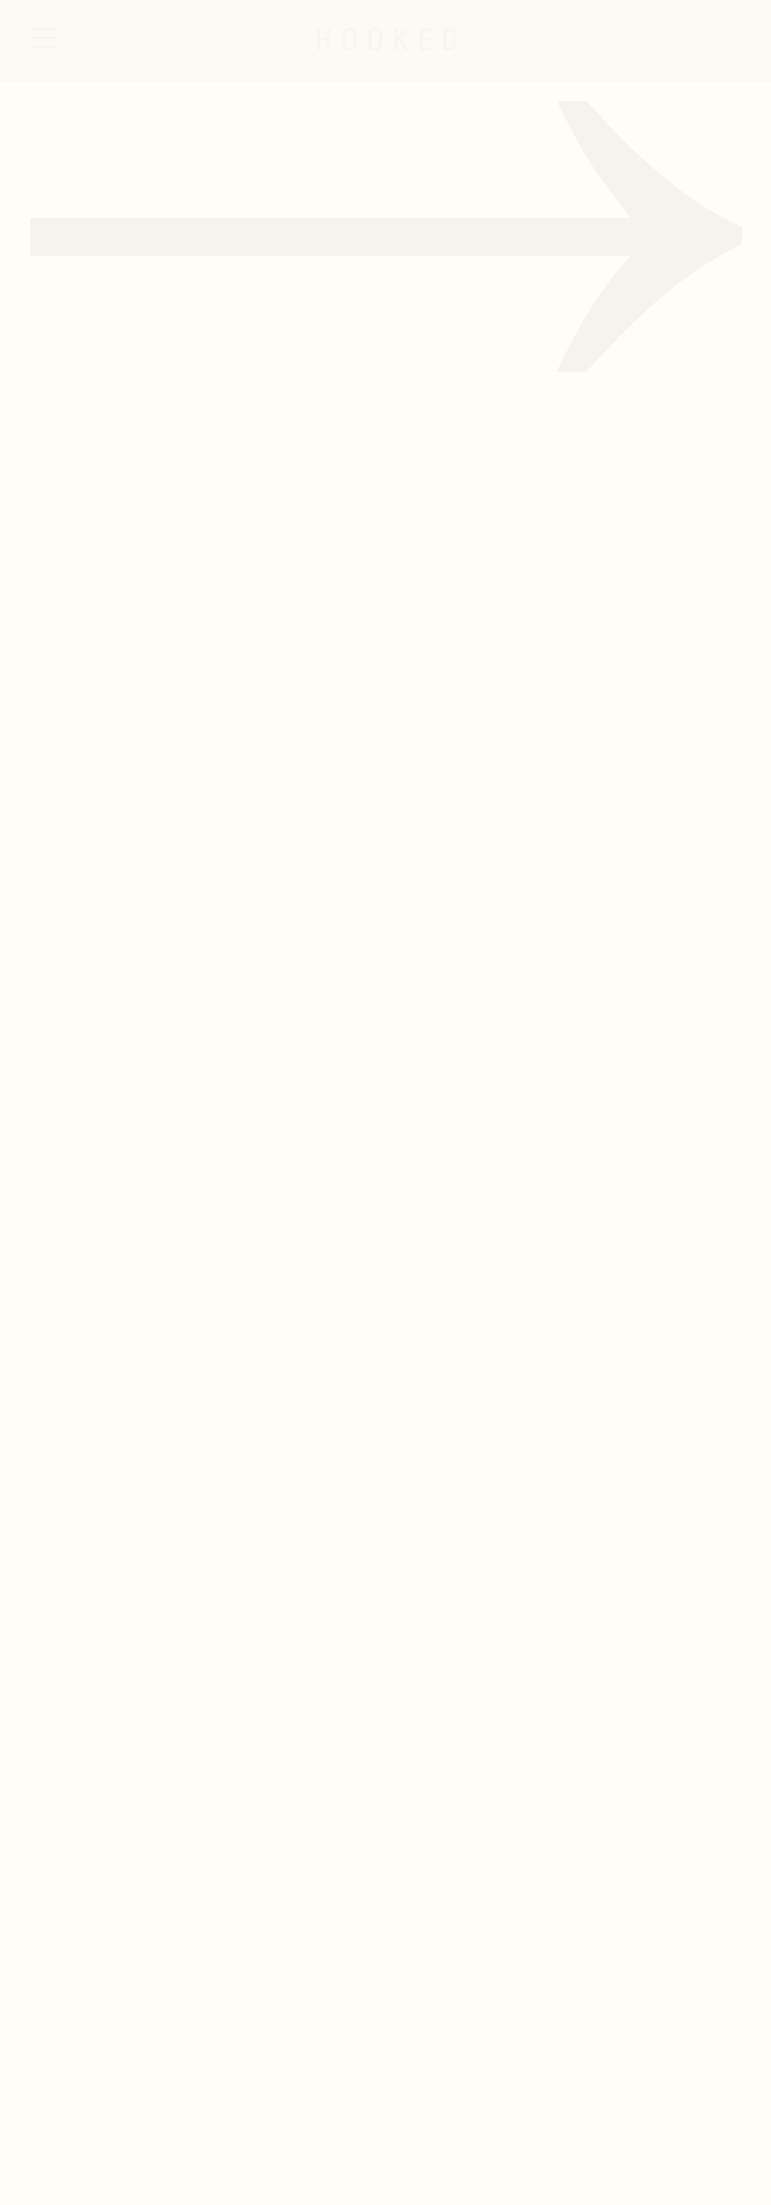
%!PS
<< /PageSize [771 2205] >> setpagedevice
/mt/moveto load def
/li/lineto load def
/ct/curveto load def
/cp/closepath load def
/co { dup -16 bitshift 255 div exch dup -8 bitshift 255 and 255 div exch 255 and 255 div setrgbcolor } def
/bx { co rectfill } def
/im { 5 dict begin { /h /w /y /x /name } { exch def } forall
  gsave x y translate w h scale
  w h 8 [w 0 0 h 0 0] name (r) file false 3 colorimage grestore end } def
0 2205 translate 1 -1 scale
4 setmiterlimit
0 0 771 2205 16#FEFEF6 bx
0 0 771 82 16#FBFAF4 bx
32 37 24 2 16#F6F5EF bx
32 28 24 2 16#F6F5EF bx
32 46 24 2 16#F6F5EF bx
(media/1.raw) 317 28 138 22 im
16#F4F3ED co
586 101 mt 630 149 680 200 742 227 ct 742 244 li 679 274 632 321 586 372 ct 557 372 li 580 322 605 283 631 256 ct 30 256 li 30 218 li 631 218 li 612 193 598 175 591 163 ct 583 152 572 131 557 101 ct cp eofill
showpage
